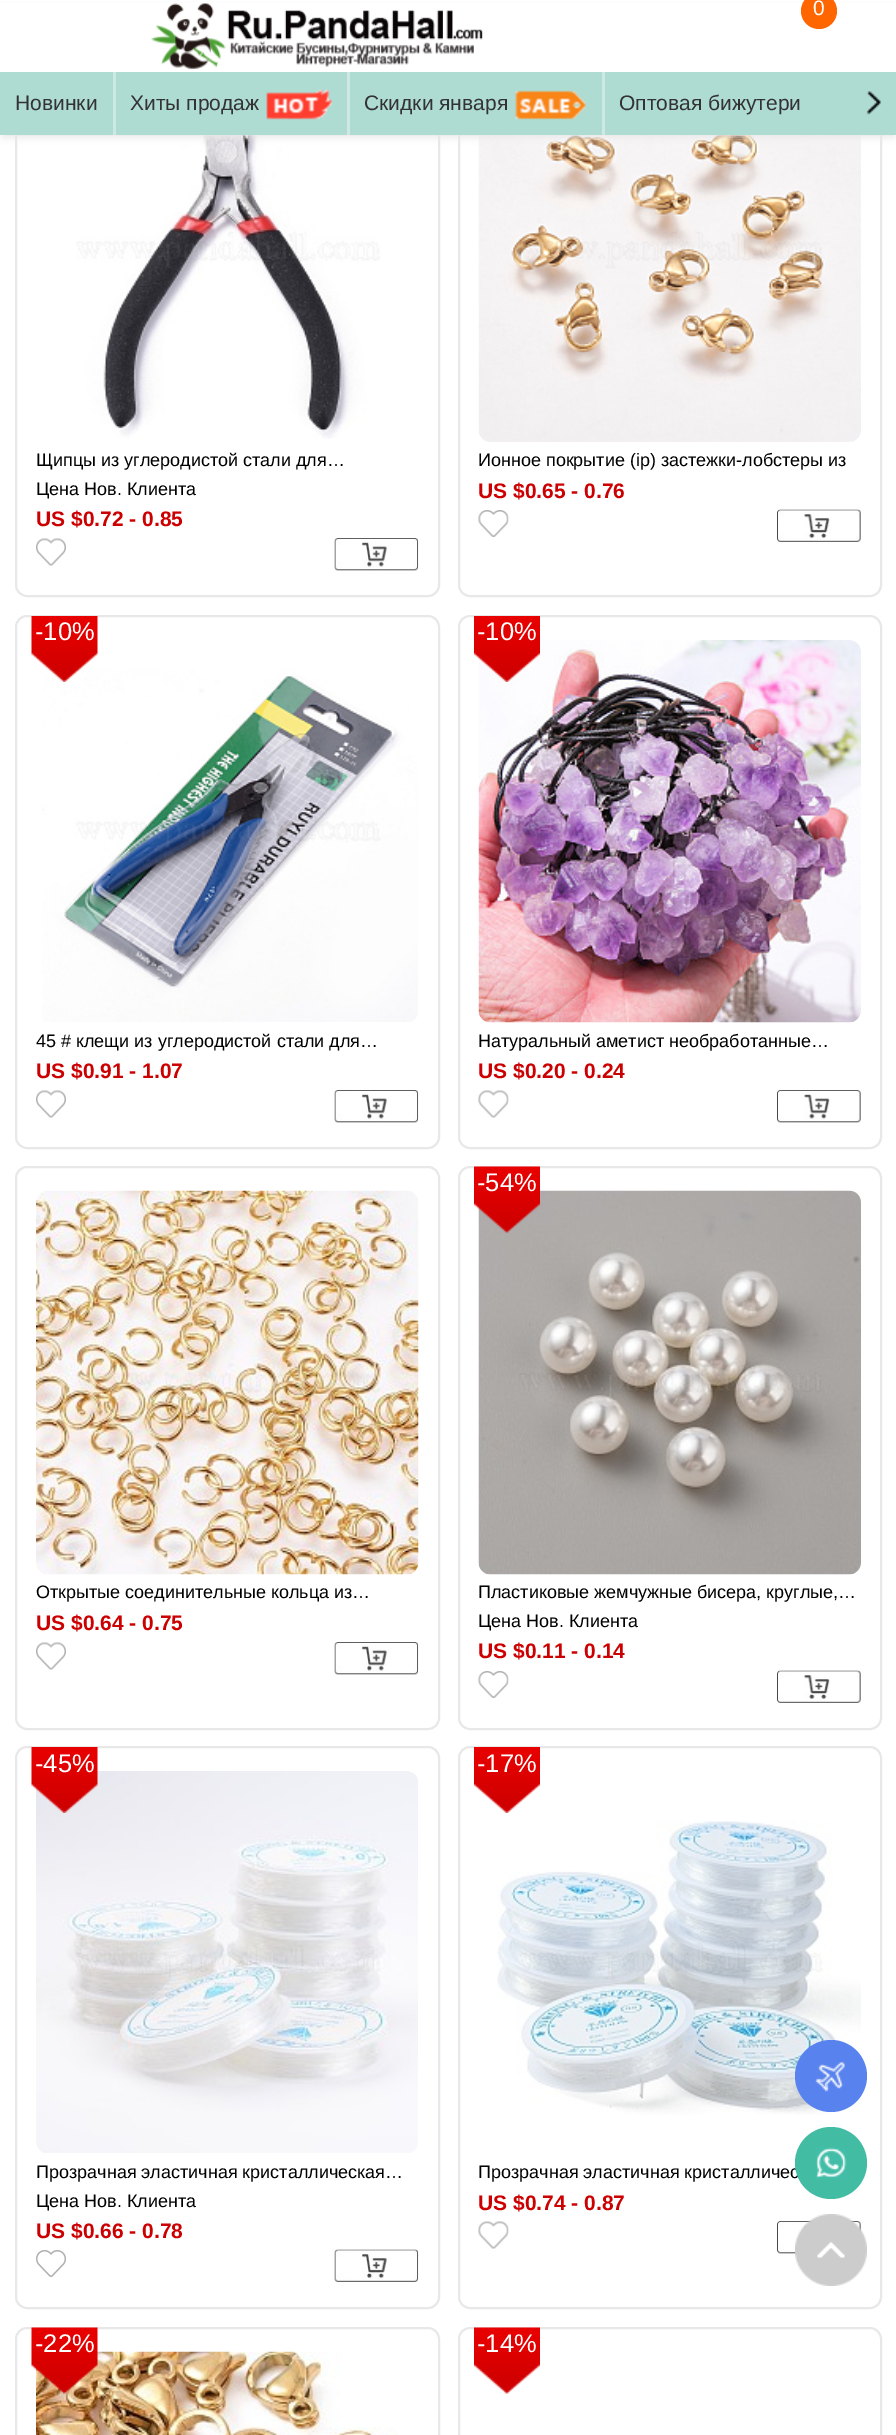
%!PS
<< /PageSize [896 2435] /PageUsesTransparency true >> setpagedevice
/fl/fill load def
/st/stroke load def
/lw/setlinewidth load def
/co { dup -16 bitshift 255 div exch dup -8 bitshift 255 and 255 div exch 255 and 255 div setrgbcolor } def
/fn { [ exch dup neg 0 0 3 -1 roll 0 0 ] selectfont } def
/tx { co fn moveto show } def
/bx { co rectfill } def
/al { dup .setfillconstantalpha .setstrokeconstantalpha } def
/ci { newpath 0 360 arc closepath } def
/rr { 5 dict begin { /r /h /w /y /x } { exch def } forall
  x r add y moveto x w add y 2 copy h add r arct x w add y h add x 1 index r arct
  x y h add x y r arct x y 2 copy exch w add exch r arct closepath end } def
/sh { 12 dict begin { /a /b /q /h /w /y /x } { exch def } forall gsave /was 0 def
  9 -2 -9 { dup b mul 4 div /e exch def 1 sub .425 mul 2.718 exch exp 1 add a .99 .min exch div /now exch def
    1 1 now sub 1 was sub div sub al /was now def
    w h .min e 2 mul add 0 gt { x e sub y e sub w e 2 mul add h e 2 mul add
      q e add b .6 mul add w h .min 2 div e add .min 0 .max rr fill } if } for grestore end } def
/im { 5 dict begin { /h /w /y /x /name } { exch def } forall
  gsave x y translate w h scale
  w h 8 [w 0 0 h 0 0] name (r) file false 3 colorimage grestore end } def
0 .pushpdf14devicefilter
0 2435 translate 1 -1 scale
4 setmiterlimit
0 0 896 2435 16#FFFFFF bx
16#E8E8E8 co
2 lw
16 36 423 560 11 rr st
(media/5.raw) 76 135 305 304 im
459 36 422 560 11 rr st
(media/8.raw) 478 135 383 307 im
16#E7E6E6 co
3 8 891 129 0 4 1 sh
0 3 896 69 16#FFFFFF bx
(media/1.raw) 151 3 332 67 im
16#FF6600 co
819 11 18 ci fl
0 72 896 63 16#AEDBD2 bx
113 72 3 63 16#CEE9E4 bx
347 72 3 63 16#CEE9E4 bx
(media/2.raw) 266 89 66 31 im
602 72 3 63 16#CEE9E4 bx
(media/3.raw) 515 90 71 30 im
(media/4.raw) 866 91 15 24 im
(media/6.raw) 36 538 30 28 im
(media/7.raw) 334 538 85 33 im
(media/9.raw) 478 510 31 27 im
(media/10.raw) 777 509 84 33 im
16#E8E8E8 co
16 616 423 532 11 rr st
(media/12.raw) 42 669 376 353 im
(media/11.raw) 31 616 67 66 im
(media/6.raw) 36 1090 30 28 im
(media/7.raw) 334 1090 85 33 im
459 616 422 532 11 rr st
(media/14.raw) 478 640 383 383 im
(media/13.raw) 474 616 66 66 im
(media/15.raw) 478 1090 31 28 im
(media/16.raw) 777 1090 84 33 im
16 1167 423 562 11 rr st
(media/17.raw) 36 1190 383 385 im
(media/6.raw) 36 1642 30 28 im
(media/7.raw) 334 1642 85 33 im
459 1167 422 562 11 rr st
(media/19.raw) 478 1190 383 385 im
(media/18.raw) 474 1166 66 67 im
(media/9.raw) 478 1671 31 27 im
(media/10.raw) 777 1670 84 33 im
16 1747 423 561 11 rr st
(media/21.raw) 36 1771 382 382 im
(media/20.raw) 31 1747 67 66 im
(media/22.raw) 36 2250 30 27 im
(media/23.raw) 334 2249 85 33 im
459 1747 422 561 11 rr st
(media/24.raw) 474 1747 66 66 im
(media/25.raw) 497 1821 364 294 im
(media/15.raw) 478 2221 31 28 im
(media/16.raw) 777 2221 84 33 im
16 2328 423 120 11 rr st
(media/27.raw) 36 2351 362 84 im
(media/26.raw) 31 2327 67 67 im
459 2328 422 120 11 rr st
(media/28.raw) 474 2327 66 67 im
16#5882EE co
831 2076 36 ci fl
(media/29.raw) 815 2062 30 30 im
(media/31.raw) 795 2214 72 72 im
(0) 813 15 /LiberationSans-Regular 21 16#FFFFFF tx
(Новинки) 15 110 /LiberationSans-Regular 21 16#333333 tx
(Хиты продаж) 130 110 /LiberationSans-Regular 21 16#333333 tx
(Скидки января) 364 110 /LiberationSans-Regular 21 16#333333 tx
(Оптовая бижутери) 619 110 /LiberationSans-Regular 21 16#333333 tx
(Щипцы из углеродистой стали для…) 36 466 /LiberationSans-Regular 18 16#000000 tx
(Цена Нов. Клиента) 36 495 /LiberationSans-Regular 18 16#000000 tx
(US $0.72 - 0.85) 36 526 /LiberationSans-Bold 21 16#CC0000 tx
(Ионное покрытие \(ip\) застежки-лобстеры из) 478 466 /LiberationSans-Regular 18 16#000000 tx
(US $0.65 - 0.76) 478 498 /LiberationSans-Bold 21 16#CC0000 tx
(-10%) 35 640 /LiberationSans-Regular 25.5 16#FFFFFF tx
(45 # клещи из углеродистой стали для…) 36 1047 /LiberationSans-Regular 18 16#000000 tx
(US $0.91 - 1.07) 36 1078 /LiberationSans-Bold 21 16#CC0000 tx
(-10%) 477 640 /LiberationSans-Regular 25.5 16#FFFFFF tx
(Натуральный аметист необработанные…) 478 1047 /LiberationSans-Regular 18 16#000000 tx
(US $0.20 - 0.24) 478 1078 /LiberationSans-Bold 21 16#CC0000 tx
(Открытые соединительные кольца из…) 36 1598 /LiberationSans-Regular 18 16#000000 tx
(US $0.64 - 0.75) 36 1630 /LiberationSans-Bold 21 16#CC0000 tx
(-54%) 477 1191 /LiberationSans-Regular 25.5 16#FFFFFF tx
(Пластиковые жемчужные бисера, круглые,…) 478 1598 /LiberationSans-Regular 18 16#000000 tx
(Цена Нов. Клиента) 478 1627 /LiberationSans-Regular 18 16#000000 tx
(US $0.11 - 0.14) 478 1658 /LiberationSans-Bold 21 16#CC0000 tx
(-45%) 35 1772 /LiberationSans-Regular 25.5 16#FFFFFF tx
(Прозрачная эластичная кристаллическая…) 36 2178 /LiberationSans-Regular 18 16#000000 tx
(Цена Нов. Клиента) 36 2207 /LiberationSans-Regular 18 16#000000 tx
(US $0.66 - 0.78) 36 2238 /LiberationSans-Bold 21 16#CC0000 tx
(-17%) 477 1772 /LiberationSans-Regular 25.5 16#FFFFFF tx
(Прозрачная эластичная кристалличес) 478 2178 /LiberationSans-Regular 18 16#000000 tx
(US $0.74 - 0.87) 478 2210 /LiberationSans-Bold 21 16#CC0000 tx
(-22%) 35 2352 /LiberationSans-Regular 25.5 16#FFFFFF tx
(-14%) 477 2352 /LiberationSans-Regular 25.5 16#FFFFFF tx
16#43BCA4 co
831 2163 36 ci fl
(media/30.raw) 816 2147 31 32 im
.poppdf14devicefilter showpage
